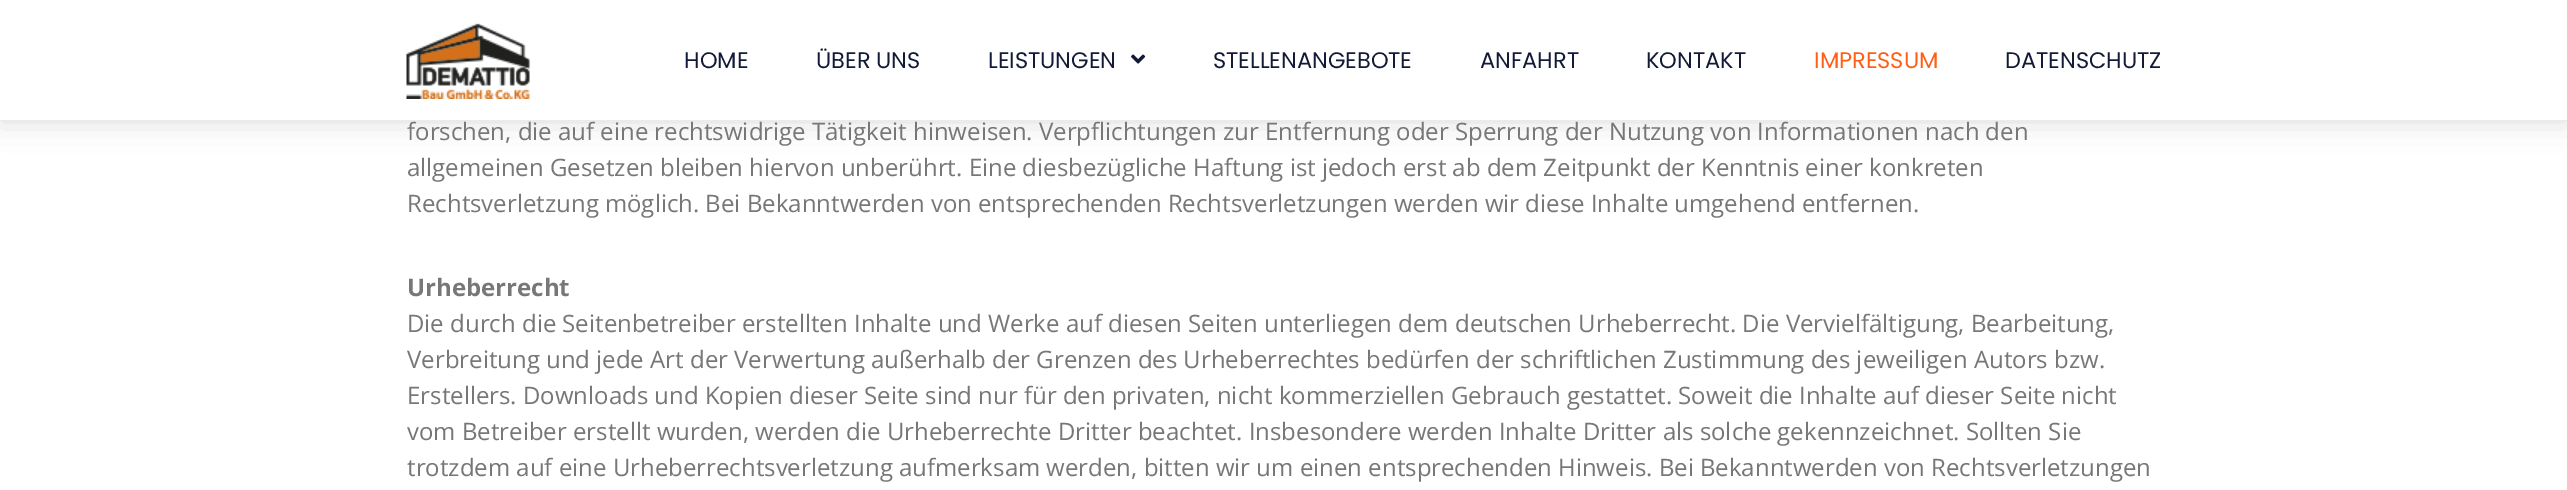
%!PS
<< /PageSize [2567 490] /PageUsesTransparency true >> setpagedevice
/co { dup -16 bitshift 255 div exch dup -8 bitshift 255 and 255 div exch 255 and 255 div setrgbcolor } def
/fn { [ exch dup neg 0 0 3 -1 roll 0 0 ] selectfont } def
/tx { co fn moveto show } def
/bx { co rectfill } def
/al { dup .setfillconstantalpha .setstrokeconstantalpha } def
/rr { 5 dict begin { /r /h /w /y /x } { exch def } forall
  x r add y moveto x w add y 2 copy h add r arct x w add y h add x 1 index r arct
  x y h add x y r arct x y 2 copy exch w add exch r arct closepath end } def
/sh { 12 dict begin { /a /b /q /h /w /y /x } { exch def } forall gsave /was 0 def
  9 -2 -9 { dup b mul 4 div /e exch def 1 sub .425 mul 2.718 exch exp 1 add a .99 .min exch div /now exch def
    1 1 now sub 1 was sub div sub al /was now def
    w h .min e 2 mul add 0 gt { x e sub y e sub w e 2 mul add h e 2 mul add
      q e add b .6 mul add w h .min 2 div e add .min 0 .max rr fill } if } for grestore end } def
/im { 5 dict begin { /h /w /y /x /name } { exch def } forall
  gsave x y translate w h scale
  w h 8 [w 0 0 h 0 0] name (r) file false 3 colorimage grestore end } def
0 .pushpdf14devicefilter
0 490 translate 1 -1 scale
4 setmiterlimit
0 0 2567 490 16#FFFFFF bx
16#000000 co
0 0 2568 120 0 15 .15 sh
0 0 2567 120 16#FFFFFF bx
(media/1.raw) 406 23 124 76 im
(media/2.raw) 1131 54 15 10 im
(HOME) 684 68 /Poppins-Regular 22.5 16#121A37 tx
(ÜBER UNS) 816 68 /Poppins-Regular 22.5 16#121A37 tx
(LEISTUNGEN) 988 68 /Poppins-Regular 22.5 16#121A37 tx
(STELLENANGEBOTE) 1213 68 /Poppins-Regular 22.5 16#121A37 tx
(ANFAHRT) 1480 68 /Poppins-Regular 22.5 16#121A37 tx
(KONTAKT) 1646 68 /Poppins-Regular 22.5 16#121A37 tx
(IMPRESSUM) 1814 68 /Poppins-Regular 22.5 16#FF5E15 tx
(DATENSCHUTZ) 2005 68 /Poppins-Regular 22.5 16#121A37 tx
(forschen, die auf eine rechtswidrige Tätigkeit hinweisen. Verpflichtungen zur Entfernung oder Sperrung der Nutzung von Informationen nach den) 407 140 /OpenSans-Regular 24 16#777777 tx
(allgemeinen Gesetzen bleiben hiervon unberührt. Eine diesbezügliche Haftung ist jedoch erst ab dem Zeitpunkt der Kenntnis einer konkreten) 407 176 /OpenSans-Regular 24 16#777777 tx
(Rechtsverletzung möglich. Bei Bekanntwerden von entsprechenden Rechtsverletzungen werden wir diese Inhalte umgehend entfernen.) 407 212 /OpenSans-Regular 24 16#777777 tx
(Urheberrecht) 407 296 /OpenSans-Bold 24 16#777777 tx
(Die durch die Seitenbetreiber erstellten Inhalte und Werke auf diesen Seiten unterliegen dem deutschen Urheberrecht. Die Vervielfältigung, Bearbeitung,) 407 332 /OpenSans-Regular 24 16#777777 tx
(Verbreitung und jede Art der Verwertung außerhalb der Grenzen des Urheberrechtes bedürfen der schriftlichen Zustimmung des jeweiligen Autors bzw.) 407 368 /OpenSans-Regular 24 16#777777 tx
(Erstellers. Downloads und Kopien dieser Seite sind nur für den privaten, nicht kommerziellen Gebrauch gestattet. Soweit die Inhalte auf dieser Seite nicht) 407 404 /OpenSans-Regular 24 16#777777 tx
(vom Betreiber erstellt wurden, werden die Urheberrechte Dritter beachtet. Insbesondere werden Inhalte Dritter als solche gekennzeichnet. Sollten Sie) 407 440 /OpenSans-Regular 24 16#777777 tx
(trotzdem auf eine Urheberrechtsverletzung aufmerksam werden, bitten wir um einen entsprechenden Hinweis. Bei Bekanntwerden von Rechtsverletzungen) 407 476 /OpenSans-Regular 24 16#777777 tx
.poppdf14devicefilter showpage
